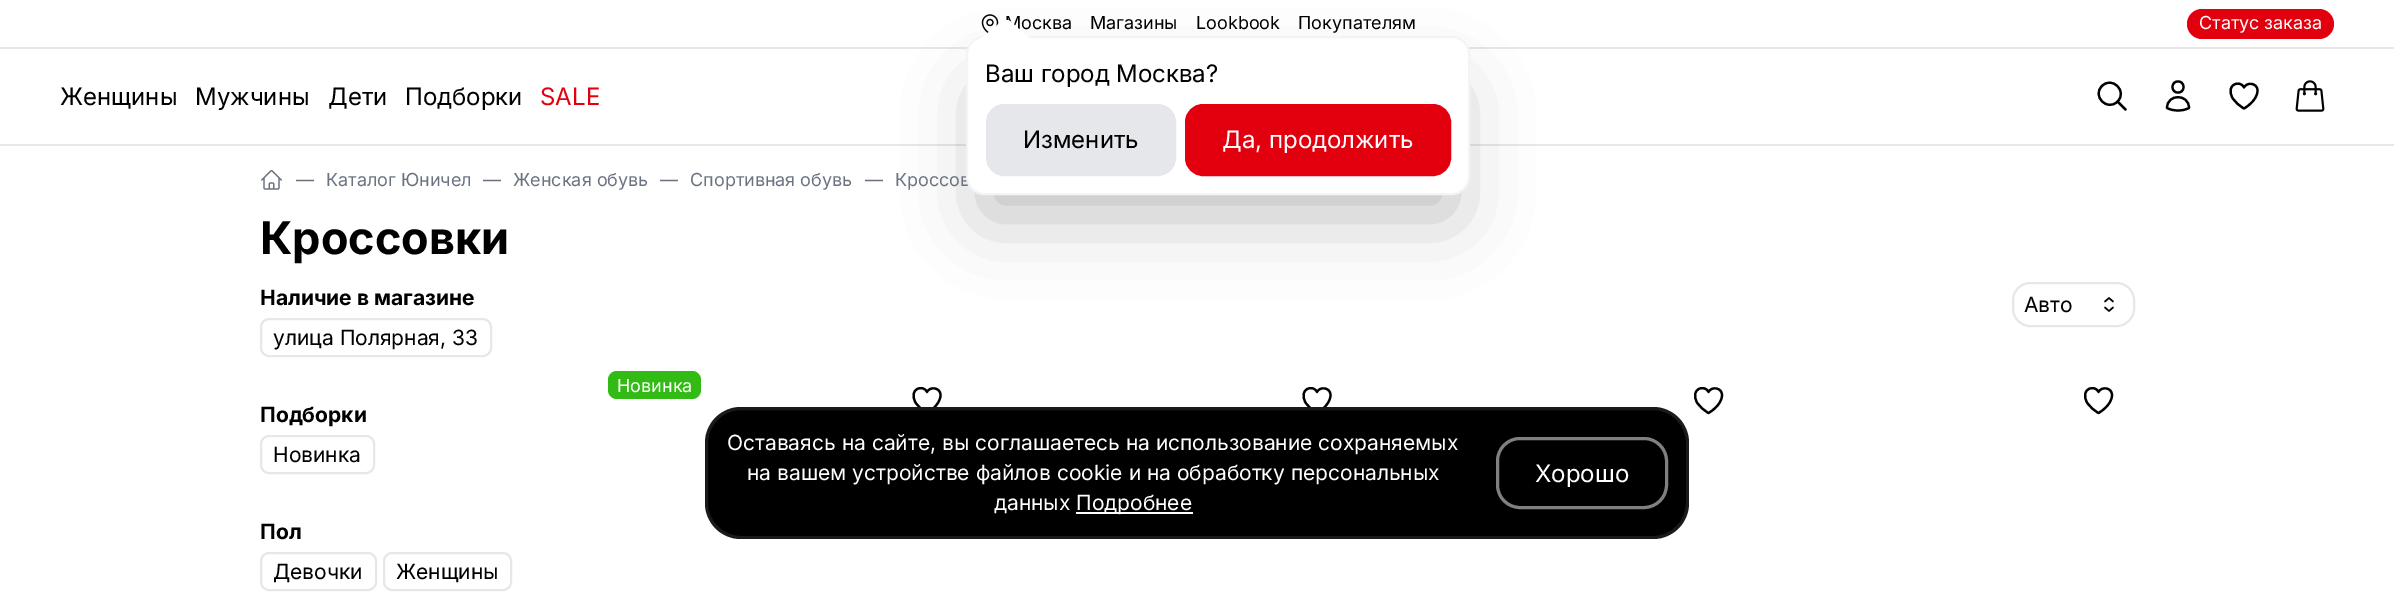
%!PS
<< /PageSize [2394 610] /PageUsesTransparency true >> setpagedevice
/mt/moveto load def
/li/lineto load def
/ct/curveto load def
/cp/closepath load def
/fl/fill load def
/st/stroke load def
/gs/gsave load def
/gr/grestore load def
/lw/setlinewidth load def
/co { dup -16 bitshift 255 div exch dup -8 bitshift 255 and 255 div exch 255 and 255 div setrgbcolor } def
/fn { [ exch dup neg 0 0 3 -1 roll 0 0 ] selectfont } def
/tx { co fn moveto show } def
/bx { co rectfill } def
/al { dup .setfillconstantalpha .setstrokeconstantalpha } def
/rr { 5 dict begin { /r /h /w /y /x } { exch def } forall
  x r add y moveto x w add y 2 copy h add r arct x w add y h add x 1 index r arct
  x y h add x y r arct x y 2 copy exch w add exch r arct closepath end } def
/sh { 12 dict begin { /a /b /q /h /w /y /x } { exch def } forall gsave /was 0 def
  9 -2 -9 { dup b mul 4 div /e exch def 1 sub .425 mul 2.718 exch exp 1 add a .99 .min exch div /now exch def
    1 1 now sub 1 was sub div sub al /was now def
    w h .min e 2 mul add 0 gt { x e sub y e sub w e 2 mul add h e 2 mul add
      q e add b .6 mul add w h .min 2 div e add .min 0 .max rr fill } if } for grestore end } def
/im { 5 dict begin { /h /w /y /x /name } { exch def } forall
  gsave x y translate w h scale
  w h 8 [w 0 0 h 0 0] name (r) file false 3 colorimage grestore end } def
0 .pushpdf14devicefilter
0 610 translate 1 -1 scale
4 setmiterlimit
0 0 2394 610 16#FFFFFF bx
0 144 2394 2 16#E5E7EB bx
16#000000 co
2.2 lw
1 setlinecap
1 setlinejoin
2125.5 109.5 mt 2117.5 101.5 li 2117.5 101.5 mt 2128 91.5 2112 75.5 2102 86 ct 2091.5 96 2107.5 112 2117.5 101.5 ct cp st
2183.5 87 mt 2183.5 94.5 2172.5 94.5 2172.5 87 ct 2172.5 79.5 2183.5 79.5 2183.5 87 ct cp 2167 108 mt 2167 93.5 2189 93.5 2189 108 ct 2182 111.5 2174 111.5 2167 108 ct cp st
2257.5 90.5 mt 2257.5 83 2247 81.5 2244 87.5 ct 2240.5 79.5 2225 84 2232.5 98 ct 2235 102 2239.5 106 2244 108.5 ct 2244 108.5 2257.5 101 2257.5 90.5 ct cp st
(media/1.raw) 2295 80 30 32 im
0 47 2394 2 16#E5E7EB bx
(media/2.raw) 981 14 18 20 im
16#000000 co
984 92 468 123 0 37.5 .25 sh
16#E3000E co
2187 9 147 30 15 rr fl
(media/3.raw) 261 170 21 20 im
16#E5E7EB co
2 lw
0 setlinecap
0 setlinejoin
261 319 230 37 8 rr st
261 436 113 37 8 rr st
261 553 115 37 8 rr st
384 553 127 37 8 rr st
2013 283 121 43 17 rr st
16#000000 co
1.5 lw
1 setlinecap
1 setlinejoin
2105 307.5 mt 2109 311 li 2113 307.5 li 2105 301.5 mt 2109 298 li 2113 301.5 li st
16#33BB15 co
608 371 93 28 9 rr fl
16#000000 co
2.2 lw
940.5 395 mt 940.5 387.5 930 386 927 392 ct 923.5 384 908 388.5 915.5 402.5 ct 918 406.5 922.5 410.5 927 413 ct 927 413 940.5 405.5 940.5 395 ct cp st
1330.5 395 mt 1330.5 387.5 1320 386 1317 392 ct 1313.5 384 1298 388.5 1305.5 402.5 ct 1308 406.5 1312.5 410.5 1317 413 ct 1317 413 1330.5 405.5 1330.5 395 ct cp st
1722 395 mt 1722 387.5 1711.5 386 1708.5 392 ct 1705 384 1689.5 388.5 1697 402.5 ct 1699.5 406.5 1704 410.5 1708.5 413 ct 1708.5 413 1722 405.5 1722 395 ct cp st
2112 395 mt 2112 387.5 2101.5 386 2098.5 392 ct 2095 384 2079.5 388.5 2087 402.5 ct 2089.5 406.5 2094 410.5 2098.5 413 ct 2098.5 413 2112 405.5 2112 395 ct cp st
705 407 984 132 36 rr fl
0.1 al
16#FFFFFF co
3 lw
0 setlinecap
0 setlinejoin
706.5 408.5 981 129 34.5 rr st
1 al
1076 512 117 2 16#FFFFFF bx
16#808080 co
1497.5 438.5 169 69 22.5 rr st
(Женщины) 60 105 /Inter-Regular 24 16#000000 tx
(Мужчины) 195 105 /Inter-Regular 24 16#000000 tx
(Дети) 328 105 /Inter-Regular 24 16#000000 tx
(Подборки) 405 105 /Inter-Regular 24 16#000000 tx
(SALE) 540 105 /Inter-Regular 24 16#E3000E tx
(Москва) 1005 29 /Inter-Regular 18 16#000000 tx
(Магазины) 1090 29 /Inter-Regular 18 16#000000 tx
(Lookbook) 1196 29 /Inter-Regular 18 16#000000 tx
(Покупателям) 1298 29 /Inter-Regular 18 16#000000 tx
(Статус заказа) 2199 29 /Inter-Regular 18 16#FFFFFF tx
(—) 296 186 /Inter-Regular 18 16#6B7280 tx
(Каталог Юничел) 326 186 /Inter-Regular 18 16#6B7280 tx
(—) 483 186 /Inter-Regular 18 16#6B7280 tx
(Женская обувь) 513 186 /Inter-Regular 18 16#6B7280 tx
(—) 660 186 /Inter-Regular 18 16#6B7280 tx
(Спортивная обувь) 690 186 /Inter-Regular 18 16#6B7280 tx
(—) 865 186 /Inter-Regular 18 16#6B7280 tx
(Кроссов) 895 186 /Inter-Regular 18 16#6B7280 tx
16#FFFFFF co
967 37 502 157 17 rr gs fl gr
16#F3F4F6 co
2 lw
st
16#E3000E co
1186 105 264 70 17 rr gs fl gr
st
(Да, продолжить) 1222 148 /Inter-Regular 24 16#FFFFFF tx
16#E5E7EB co
987 105 188 70 17 rr gs fl gr
st
(Изменить) 1023 148 /Inter-Regular 24 16#000000 tx
gs
968 20 76 22 rectclip
16#FFFFFF co
1002 21 mt 984 36 li 980 40 974 42 969 42 ct 1043 42 li 1037 42 1032 40 1027 36 ct 1010 21 li 1007 19 1004 19 1002 21 ct cp fl
gr
(Ваш город Москва?) 985 82 /Inter-Regular 24 16#000000 tx
(Кроссовки) 260 254 /Inter-Bold 45 16#000000 tx
(Наличие в магазине) 260 305 /Inter-Bold 21 16#000000 tx
(улица Полярная, 33) 273 345 /Inter-Regular 21 16#000000 tx
(Подборки) 260 422 /Inter-Bold 21 16#000000 tx
(Новинка) 273 462 /Inter-Regular 21 16#000000 tx
(Пол) 260 539 /Inter-Bold 21 16#000000 tx
(Девочки) 273 579 /Inter-Regular 21 16#000000 tx
(Женщины) 396 579 /Inter-Regular 21 16#000000 tx
(Авто) 2024 312 /Inter-Regular 21 16#000000 tx
(Новинка) 617 392 /Inter-Regular 18 16#FFFFFF tx
(Оставаясь на сайте, вы соглашаетесь на использование сохраняемых) 727 450 /Inter-Regular 21 16#FFFFFF tx
(на вашем устройстве файлов cookie и на обработку персональных) 747 480 /Inter-Regular 21 16#FFFFFF tx
(данных) 994 510 /Inter-Regular 21 16#FFFFFF tx
(Подробнее) 1076 510 /Inter-Regular 21 16#FFFFFF tx
(Хорошо) 1535 482 /Inter-Regular 24 16#FFFFFF tx
.poppdf14devicefilter showpage
